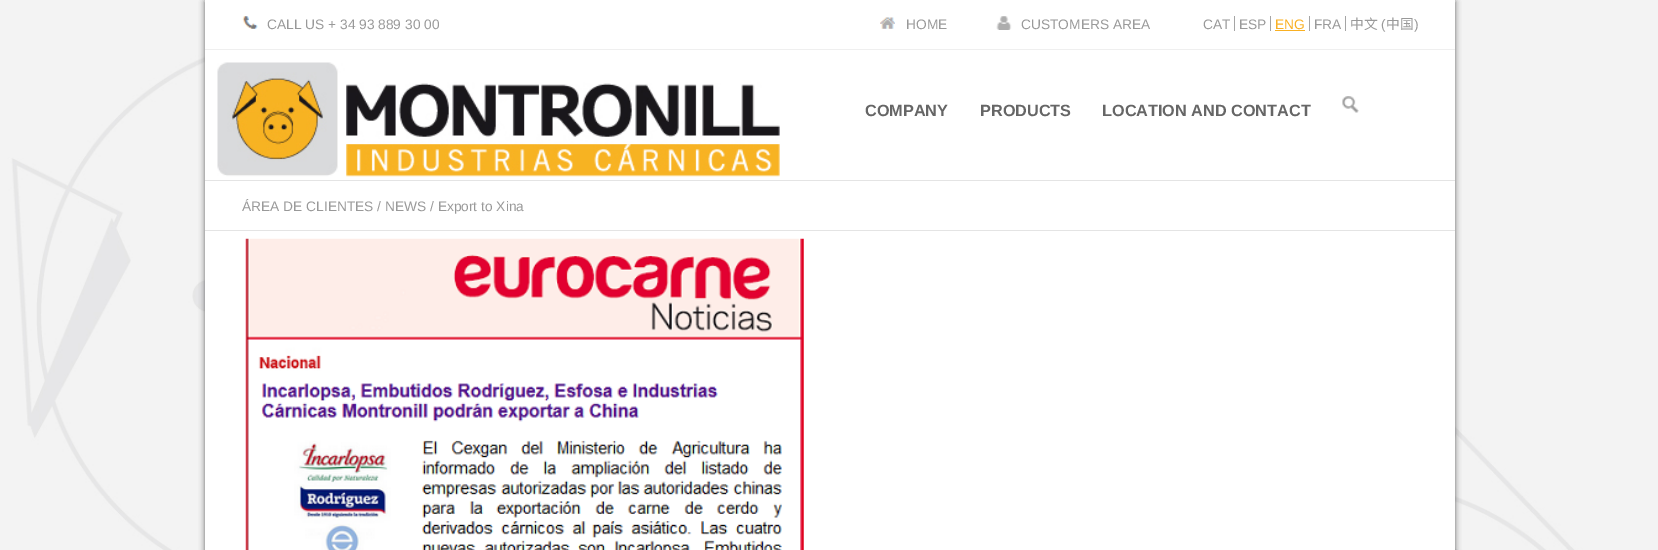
%!PS
<< /PageSize [1658 550] /PageUsesTransparency true >> setpagedevice
/co { dup -16 bitshift 255 div exch dup -8 bitshift 255 and 255 div exch 255 and 255 div setrgbcolor } def
/fn { [ exch dup neg 0 0 3 -1 roll 0 0 ] selectfont } def
/tx { co fn moveto show } def
/bx { co rectfill } def
/al { dup .setfillconstantalpha .setstrokeconstantalpha } def
/rr { 5 dict begin { /r /h /w /y /x } { exch def } forall
  x r add y moveto x w add y 2 copy h add r arct x w add y h add x 1 index r arct
  x y h add x y r arct x y 2 copy exch w add exch r arct closepath end } def
/sh { 12 dict begin { /a /b /q /h /w /y /x } { exch def } forall gsave /was 0 def
  9 -2 -9 { dup b mul 4 div /e exch def 1 sub .425 mul 2.718 exch exp 1 add a .99 .min exch div /now exch def
    1 1 now sub 1 was sub div sub al /was now def
    w h .min e 2 mul add 0 gt { x e sub y e sub w e 2 mul add h e 2 mul add
      q e add b .6 mul add w h .min 2 div e add .min 0 .max rr fill } if } for grestore end } def
/im { 5 dict begin { /h /w /y /x /name } { exch def } forall
  gsave x y translate w h scale
  w h 8 [w 0 0 h 0 0] name (r) file false 3 colorimage grestore end } def
0 .pushpdf14devicefilter
0 550 translate 1 -1 scale
4 setmiterlimit
0 0 1658 550 16#FFFFFF bx
(media/1.raw) 0 0 1658 550 im
16#000000 co
205 0 1250 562 2.5 3 .6 sh
205 0 1250 550 16#FFFFFF bx
205 49 1250 1 16#EFEFEF bx
(media/2.raw) 242 16 16 13 im
(media/3.raw) 880 17 15 12 im
(media/4.raw) 996 16 16 14 im
1234 16 1 15 16#A5A5A5 bx
1270 16 1 15 16#A5A5A5 bx
1309 16 1 15 16#A5A5A5 bx
1275 30 30 1 16#F9B023 bx
1345 16 1 15 16#A5A5A5 bx
(media/5.raw) 217 62 563 115 im
(media/6.raw) 1342 96 17 17 im
205 180 1250 1 16#E4E4E4 bx
205 230 1250 1 16#E4E4E4 bx
(media/7.raw) 245 238 559 312 im
(CALL US + 34 93 889 30 00) 267 29 /LiberationSans-Regular 13.75 16#999999 tx
(HOME) 906 29 /LiberationSans-Regular 13.75 16#999999 tx
(CUSTOMERS AREA) 1021 29 /LiberationSans-Regular 13.75 16#999999 tx
(CAT) 1203 29 /LiberationSans-Regular 13.75 16#999999 tx
(ESP) 1239 29 /LiberationSans-Regular 13.75 16#999999 tx
(ENG) 1275 29 /LiberationSans-Regular 13.75 16#F9B023 tx
(FRA) 1314 29 /LiberationSans-Regular 13.75 16#999999 tx
(中文) 1350 29 /NotoSansCJKSC-Regular 13.75 16#999999 tx
(\() 1381 29 /LiberationSans-Regular 13.75 16#999999 tx
(中国) 1386 29 /NotoSansCJKSC-Regular 13.75 16#999999 tx
(\)) 1414 29 /LiberationSans-Regular 13.75 16#999999 tx
(COMPANY) 865 116 /LiberationSans-Bold 16.25 16#666666 tx
(PRODUCTS) 980 116 /LiberationSans-Bold 16.25 16#666666 tx
(LOCATION AND CONTACT) 1102 116 /LiberationSans-Bold 16.25 16#666666 tx
(ÁREA DE CLIENTES / NEWS / Export to Xina) 242 211 /LiberationSans-Regular 13.75 16#999999 tx
.poppdf14devicefilter showpage
